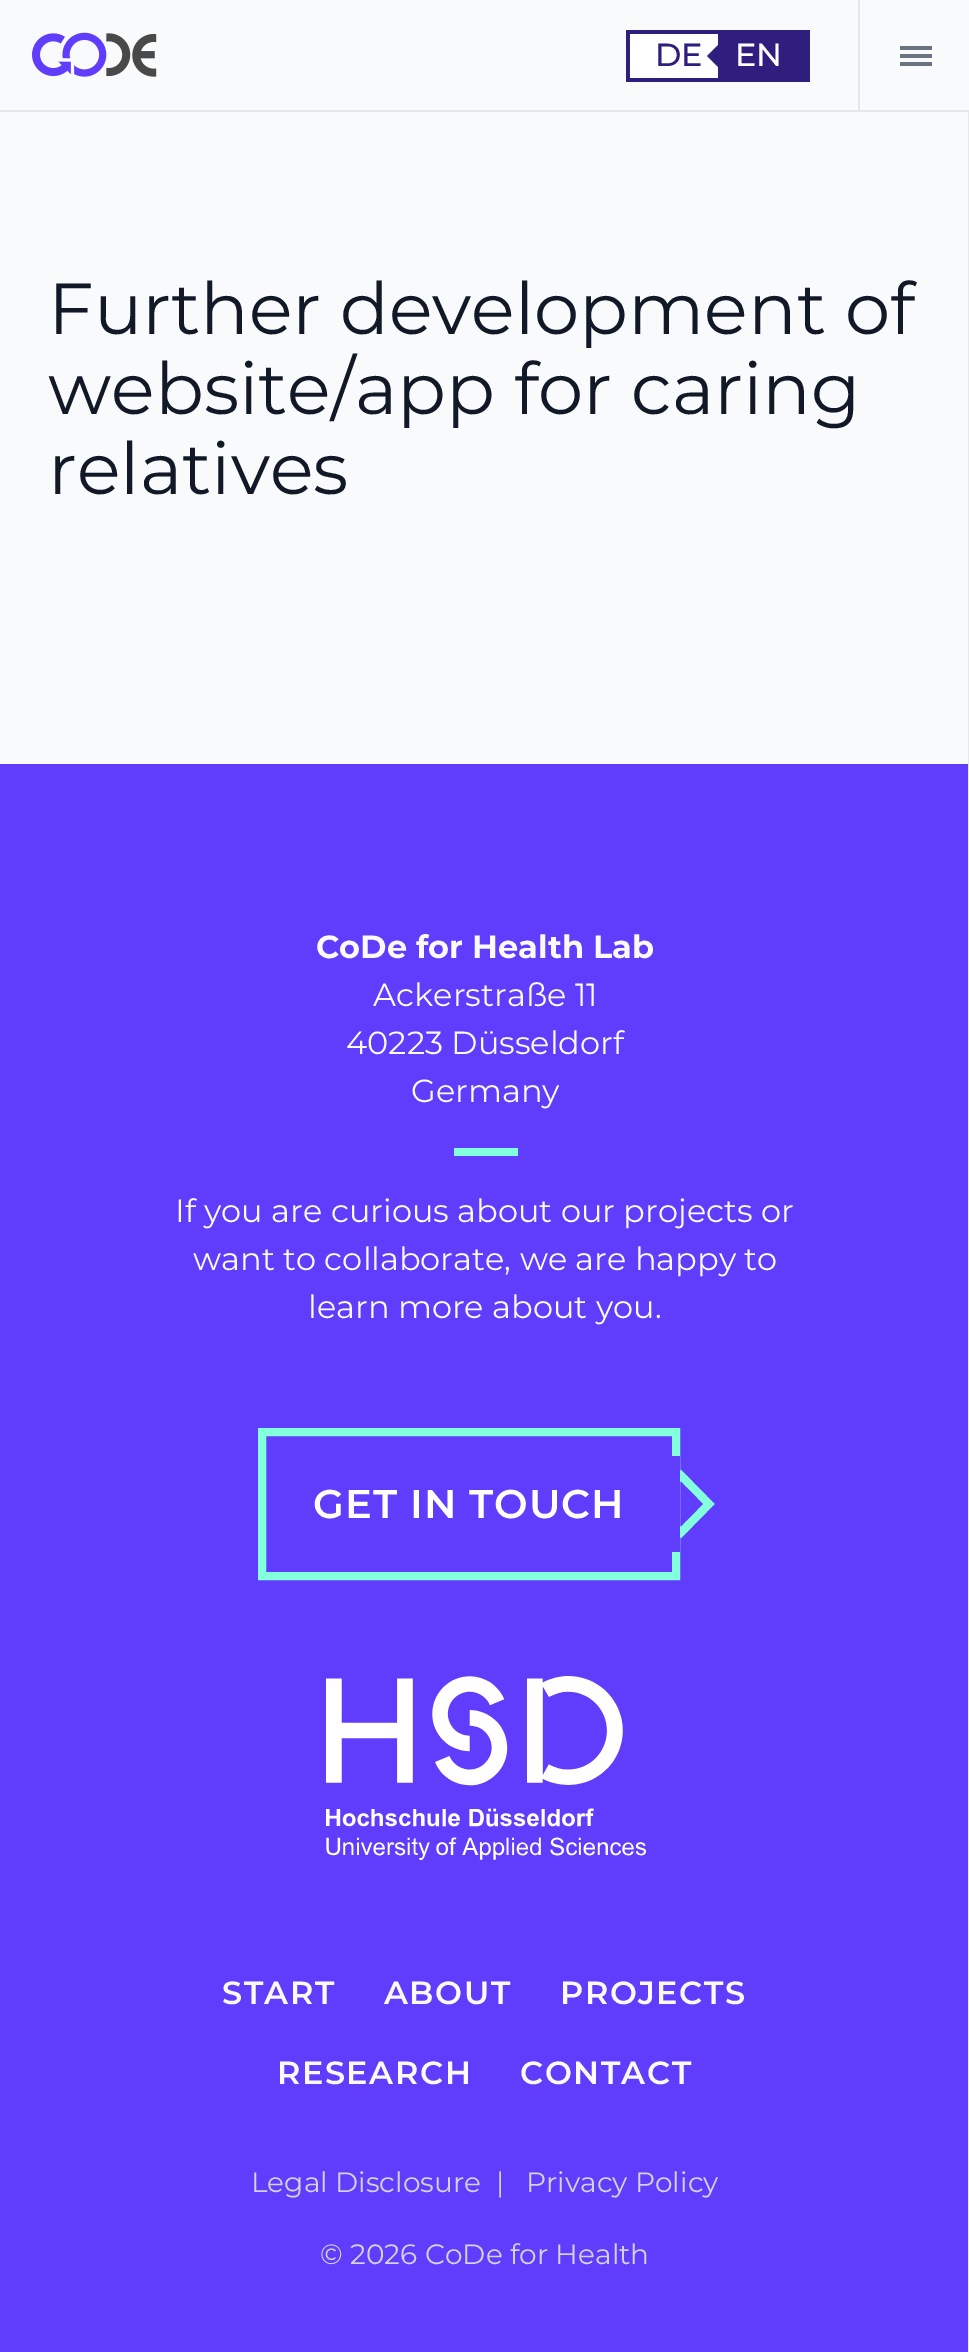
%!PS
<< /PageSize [969 2352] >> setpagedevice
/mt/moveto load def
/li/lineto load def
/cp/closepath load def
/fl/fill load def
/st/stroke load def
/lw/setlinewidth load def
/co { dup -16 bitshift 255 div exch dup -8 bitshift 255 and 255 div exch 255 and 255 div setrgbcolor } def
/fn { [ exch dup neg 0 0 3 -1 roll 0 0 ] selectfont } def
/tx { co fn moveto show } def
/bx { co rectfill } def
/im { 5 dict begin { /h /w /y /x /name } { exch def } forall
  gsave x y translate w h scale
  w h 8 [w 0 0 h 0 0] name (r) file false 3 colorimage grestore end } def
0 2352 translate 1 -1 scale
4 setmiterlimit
0 0 969 2352 16#F9FAFB bx
0 110 969 2 16#E5E7EB bx
(media/1.raw) 32 32 125 45 im
626 30 184 52 16#2F1E7D bx
630 34 88 44 16#FFFFFF bx
16#2F1E7D co
718.5 44.5 mt 729.5 56 li 718.5 67.5 li 707 56 li cp fl
858 0 2 112 16#E5E7EB bx
900 46 32 4 16#6B7280 bx
900 54 32 4 16#6B7280 bx
900 62 32 4 16#6B7280 bx
968 112 1 2240 16#E5E7EB bx
0 764 968 1588 16#603DFD bx
454 1148 64 8 16#84FFDD bx
8 lw
681 1475.5 mt 709 1504 li 681 1532.5 li 652.5 1504 li cp st
262 1432 414 144 rectstroke
647 1456 33 96 16#603DFD bx
(media/2.raw) 326 1676 320 184 im
(DE) 655 66 /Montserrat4-Thin 32 16#2F1E7D tx
(EN) 735 66 /Montserrat4-Thin 32 16#FFFFFF tx
(Further development of) 48 334 /Montserrat-Thin 72 16#111827 tx
(website/app for caring) 48 414 /Montserrat-Thin 72 16#111827 tx
(relatives) 48 494 /Montserrat-Thin 72 16#111827 tx
(CoDe for Health Lab) 316 958 /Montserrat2-Thin 32 16#F9FAFB tx
(Ackerstraße 11) 373 1006 /Montserrat-Thin 32 16#F9FAFB tx
(40223 Düsseldorf) 346 1054 /Montserrat-Thin 32 16#F9FAFB tx
(Germany) 411 1102 /Montserrat-Thin 32 16#F9FAFB tx
(If you are curious about our projects or) 175 1222 /Montserrat-Thin 32 16#F9FAFB tx
(want to collaborate, we are happy to) 193 1270 /Montserrat-Thin 32 16#F9FAFB tx
(learn more about you.) 308 1318 /Montserrat-Thin 32 16#F9FAFB tx
/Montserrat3-Thin 40 fn
16#FFFFFF co
313 1518 mt 1 0 (GET IN TOUCH) ashow
/Montserrat3-Thin 32 fn
16#F9FAFB co
222 2004 mt 1.5 0 (START) ashow
384 2004 mt 1.5 0 (ABOUT) ashow
560 2004 mt 1.5 0 (PROJECTS) ashow
277 2084 mt 1.5 0 (RESEARCH) ashow
520 2084 mt 1.5 0 (CONTACT) ashow
(Legal Disclosure) 251 2192 /Montserrat-Thin 28 16#D1D5DB tx
(|) 496 2192 /Montserrat-Thin 28 16#D1D5DB tx
(Privacy Policy) 526 2192 /Montserrat-Thin 28 16#D1D5DB tx
(© 2026 CoDe for Health) 320 2264 /Montserrat-Thin 28 16#D1D5DB tx
showpage
